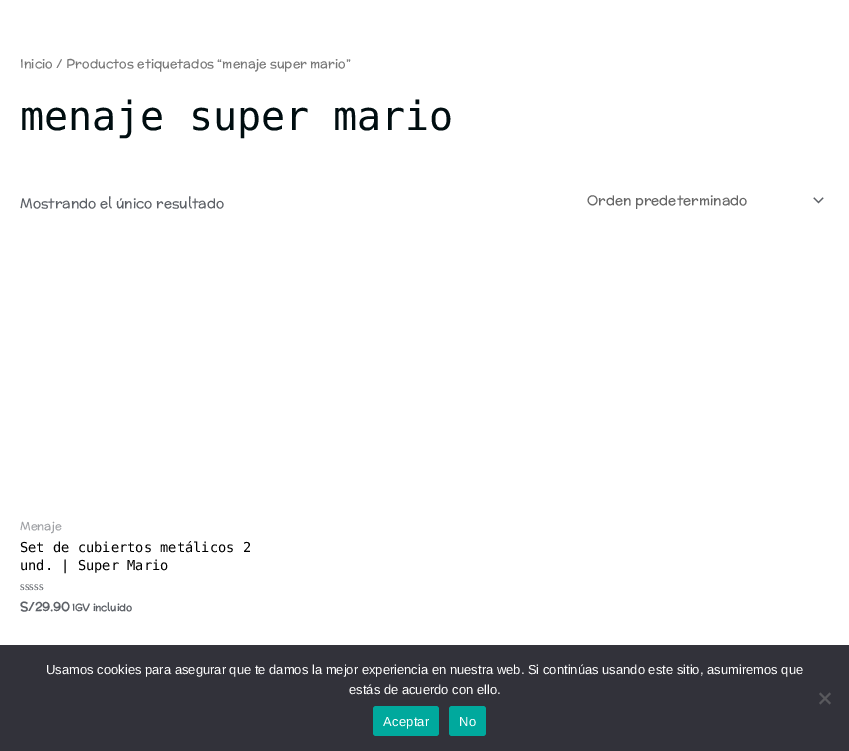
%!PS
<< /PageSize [849 751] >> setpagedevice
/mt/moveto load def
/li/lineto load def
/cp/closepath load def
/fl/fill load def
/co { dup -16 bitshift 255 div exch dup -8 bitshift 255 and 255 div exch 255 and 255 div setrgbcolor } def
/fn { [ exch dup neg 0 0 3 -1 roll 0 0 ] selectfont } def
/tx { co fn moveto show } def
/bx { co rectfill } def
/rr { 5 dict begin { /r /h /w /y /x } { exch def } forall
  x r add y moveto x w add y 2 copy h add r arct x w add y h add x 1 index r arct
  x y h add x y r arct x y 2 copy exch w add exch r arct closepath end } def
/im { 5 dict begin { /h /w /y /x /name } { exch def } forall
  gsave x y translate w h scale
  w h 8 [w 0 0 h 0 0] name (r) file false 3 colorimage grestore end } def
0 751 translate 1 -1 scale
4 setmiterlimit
0 0 849 751 16#FFFFFF bx
(media/1.raw) 813 197 11 7 im
0 645 849 106 16#32323A bx
16#59595D co
829.5 692.5 mt 831 694 li 820.5 704.5 li 819 703 li cp fl
819 694 mt 820.5 692.5 li 831 703 li 829.5 704.5 li cp fl
16#00A99D co
373 706 66 30 3 rr fl
449 706 37 30 3 rr fl
(Inicio / Productos etiquetados “menaje super mario”) 20 68 /McLaren-Regular 12.6 16#777777 tx
(menaje super mario) 20 130 /DejaVuSansMono-Regular 40 16#000D10 tx
(Mostrando el único resultado) 20 208 /McLaren-Regular 13.7 16#5D6167 tx
(Orden predeterminado) 587 205 /McLaren-Regular 13.7 16#666666 tx
(Menaje) 20 530 /McLaren-Regular 11.5 16#9EA0A4 tx
(Set de cubiertos metálicos 2) 20 552 /DejaVuSansMono-Regular 13.7 16#000000 tx
(und. | Super Mario) 20 570 /DejaVuSansMono-Regular 13.7 16#000000 tx
(sssss) 20 590 /LiberationSerif-Regular 12 16#5D6167 tx
(S/29.90) 20 611 /McLaren-Bold 12.5 16#5D6167 tx
(IGV incluido) 72 611 /McLaren-Bold 10 16#5D6167 tx
(Usamos cookies para asegurar que te damos la mejor experiencia en nuestra web. Si continúas usando este sitio, asumiremos que) 46 674 /LiberationSans-Regular 13 16#FFFFFF tx
(estás de acuerdo con ello.) 349 694 /LiberationSans-Regular 13 16#FFFFFF tx
383 726 mt .25 0 (Aceptar) ashow
459 726 mt .25 0 (No) ashow
showpage
